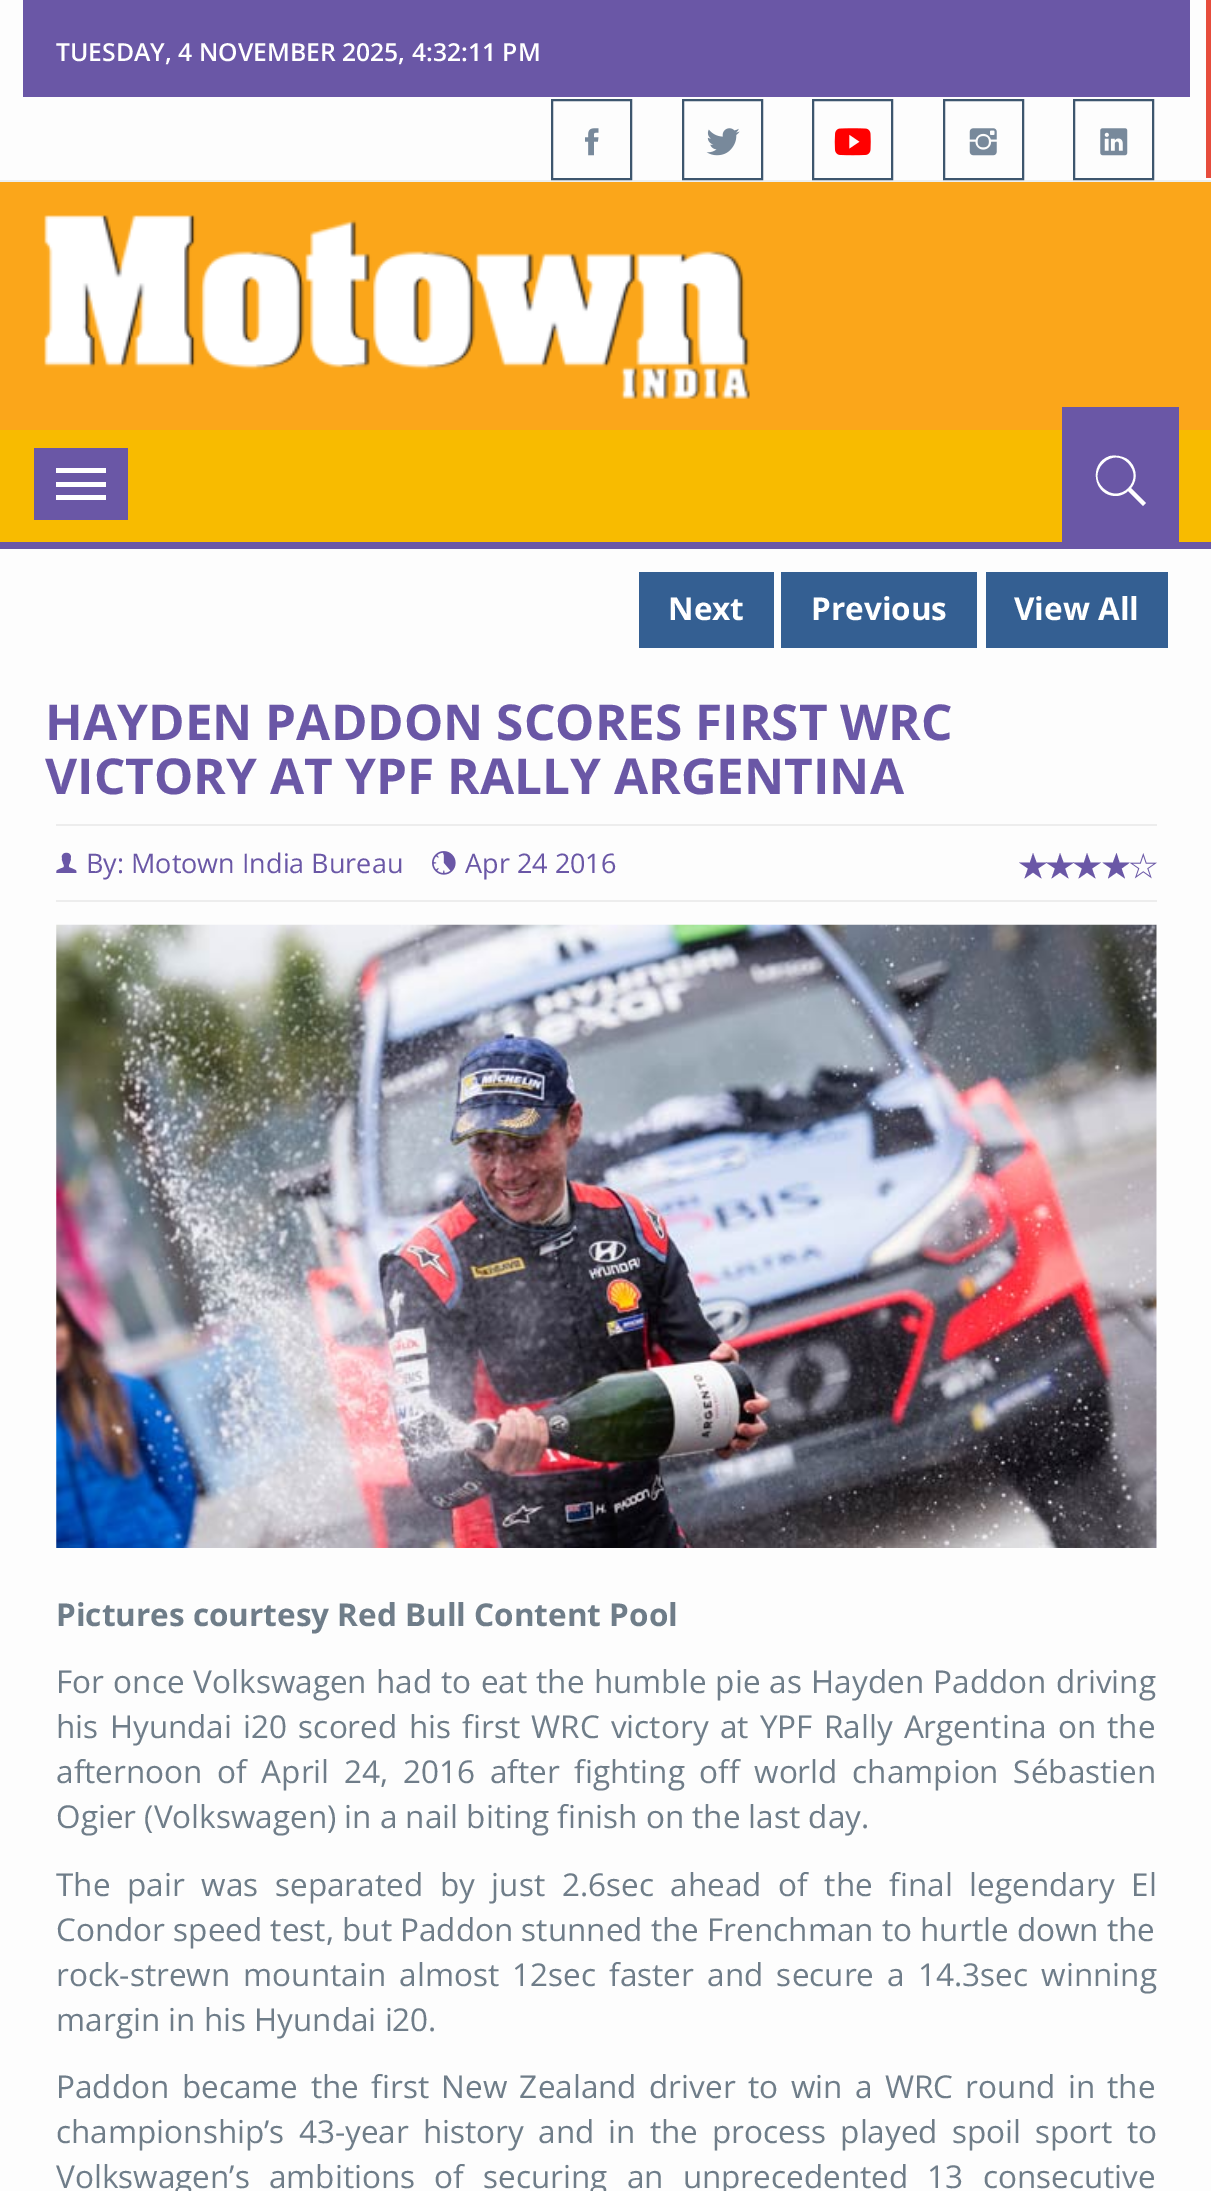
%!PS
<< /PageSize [1211 2191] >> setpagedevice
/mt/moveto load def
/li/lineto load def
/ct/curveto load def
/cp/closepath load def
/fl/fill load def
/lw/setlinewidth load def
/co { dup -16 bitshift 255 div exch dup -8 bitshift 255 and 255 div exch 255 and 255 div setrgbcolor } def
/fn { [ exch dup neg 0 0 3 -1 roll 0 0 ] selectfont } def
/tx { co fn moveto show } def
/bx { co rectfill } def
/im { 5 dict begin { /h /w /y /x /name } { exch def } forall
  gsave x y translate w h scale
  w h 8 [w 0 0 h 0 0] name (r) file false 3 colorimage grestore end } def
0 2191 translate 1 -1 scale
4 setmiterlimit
0 0 1211 2191 16#FDFDFD bx
0 180 1211 2 16#ECF0F1 bx
23 0 1167 97 16#6A57A6 bx
16#3D566E co
2 lw
552 100 79 79 rectstroke
(media/1.raw) 585 128 14 28 im
683 100 79 79 rectstroke
(media/2.raw) 706 128 34 28 im
813 100 79 79 rectstroke
(media/3.raw) 834 128 37 28 im
944 100 79 79 rectstroke
(media/4.raw) 969 128 28 28 im
1074 100 79 79 rectstroke
(media/5.raw) 1100 128 28 28 im
0 182 1211 248 16#FBA61A bx
(media/6.raw) 44 215 706 184 im
0 430 1211 112 16#F8BB00 bx
0 542 1211 7 16#6A57A6 bx
34 448 94 72 16#6A57A6 bx
56 468 50 5 16#FFFFFF bx
56 482 50 5 16#FFFFFF bx
56 495 50 5 16#FFFFFF bx
1062 407 117 135 16#6A57A6 bx
16#FFFFFF co
1146 503 mt 1143 506 li 1128 491 li 1125 494 1120 496 1116 496 ct 1093 496 1088 463 1110 456 ct 1116 455 1122 456 1127 459 ct 1136 465 1139 479 1131 488 ct cp 1103 488 mt 1120 505 1145 480 1128 463 ct 1112 446 1086 472 1103 488 ct cp fl
639 572 135 76 16#345F92 bx
781 572 196 76 16#345F92 bx
986 572 182 76 16#345F92 bx
56 824 1101 2 16#EDEDED bx
56 900 1101 2 16#EDEDED bx
(media/7.raw) 56 852 21 21 im
(media/8.raw) 432 851 24 24 im
16#6A57A6 co
1047 862.5 mt 1038 868.5 li 1041.5 878.5 li 1033 872.5 li 1024.5 878.5 li 1028 868.5 li 1019 862.5 li 1030 862.5 li 1033 853 li 1036.5 862.5 li cp fl
1074 862.5 mt 1065 868.5 li 1068.5 878.5 li 1060 872.5 li 1051.5 878.5 li 1055 868.5 li 1046 862.5 li 1057 862.5 li 1060 853 li 1063.5 862.5 li cp fl
1101 862.5 mt 1092 868.5 li 1095.5 878.5 li 1087 872.5 li 1078.5 878.5 li 1082 868.5 li 1073 862.5 li 1084 862.5 li 1087 853 li 1090.5 862.5 li cp 1130 862.5 mt 1121.5 868.5 li 1125 878.5 li 1116.5 872.5 li 1108 878.5 li 1111 868.5 li 1102.5 862.5 li 1113 862.5 li 1116.5 853 li 1119.5 862.5 li cp fl
(media/9.raw) 1129 853 28 26 im
(media/10.raw) 56 924 1101 624 im
1206 0 5 178 16#E74C3C bx
(TUESDAY, 4 NOVEMBER 2025, 4:32:11 PM) 56 61 /OpenSans-SemiBold 24.75 16#FFFFFF tx
(Next) 668 620 /OpenSans-Bold 31.5 16#FFFFFF tx
(Previous) 811 620 /OpenSans-Bold 31.5 16#FFFFFF tx
(View All) 1014 620 /OpenSans-Bold 31.5 16#FFFFFF tx
(HAYDEN PADDON SCORES FIRST WRC) 45 740 /OpenSans-Bold 49.5 16#6A57A6 tx
(VICTORY AT YPF RALLY ARGENTINA) 45 794 /OpenSans-Bold 49.5 16#6A57A6 tx
(By: Motown India Bureau) 86 873 /OpenSans-Regular 27 16#6A57A6 tx
(Apr 24 2016) 465 873 /OpenSans-Regular 27 16#6A57A6 tx
(Pictures courtesy Red Bull Content Pool) 56 1626 /OpenSans-Bold 31.5 16#6F7D89 tx
/OpenSans-Regular 31.5 fn
56 1693 mt 1 0 32 (For once Volkswagen had to eat the humble pie as Hayden Paddon driving) widthshow
56 1738 mt 3.1 0 32 (his Hyundai i20 scored his first WRC victory at YPF Rally Argentina on the) widthshow
56 1783 mt 6.5 0 32 (afternoon of April 24, 2016 after fighting off world champion Sébastien) widthshow
(Ogier \(Volkswagen\) in a nail biting finish on the last day.) 56 1828 /OpenSans-Regular 31.5 16#6F7D89 tx
56 1896 mt 8.5 0 32 (The pair was separated by just 2.6sec ahead of the final legendary El) widthshow
(Condor speed test, but Paddon stunned the Frenchman to hurtle down the) 56 1941 /OpenSans-Regular 31.5 16#6F7D89 tx
56 1986 mt 5 0 32 (rock-strewn mountain almost 12sec faster and secure a 14.3sec winning) widthshow
(margin in his Hyundai i20.) 56 2031 /OpenSans-Regular 31.5 16#6F7D89 tx
56 2098 mt 4.25 0 32 (Paddon became the first New Zealand driver to win a WRC round in the) widthshow
56 2143 mt 6 0 32 (championship’s 43-year history and in the process played spoil sport to) widthshow
56 2188 mt 11 0 32 (Volkswagen’s ambitions of securing an unprecedented 13 consecutive) widthshow
showpage
